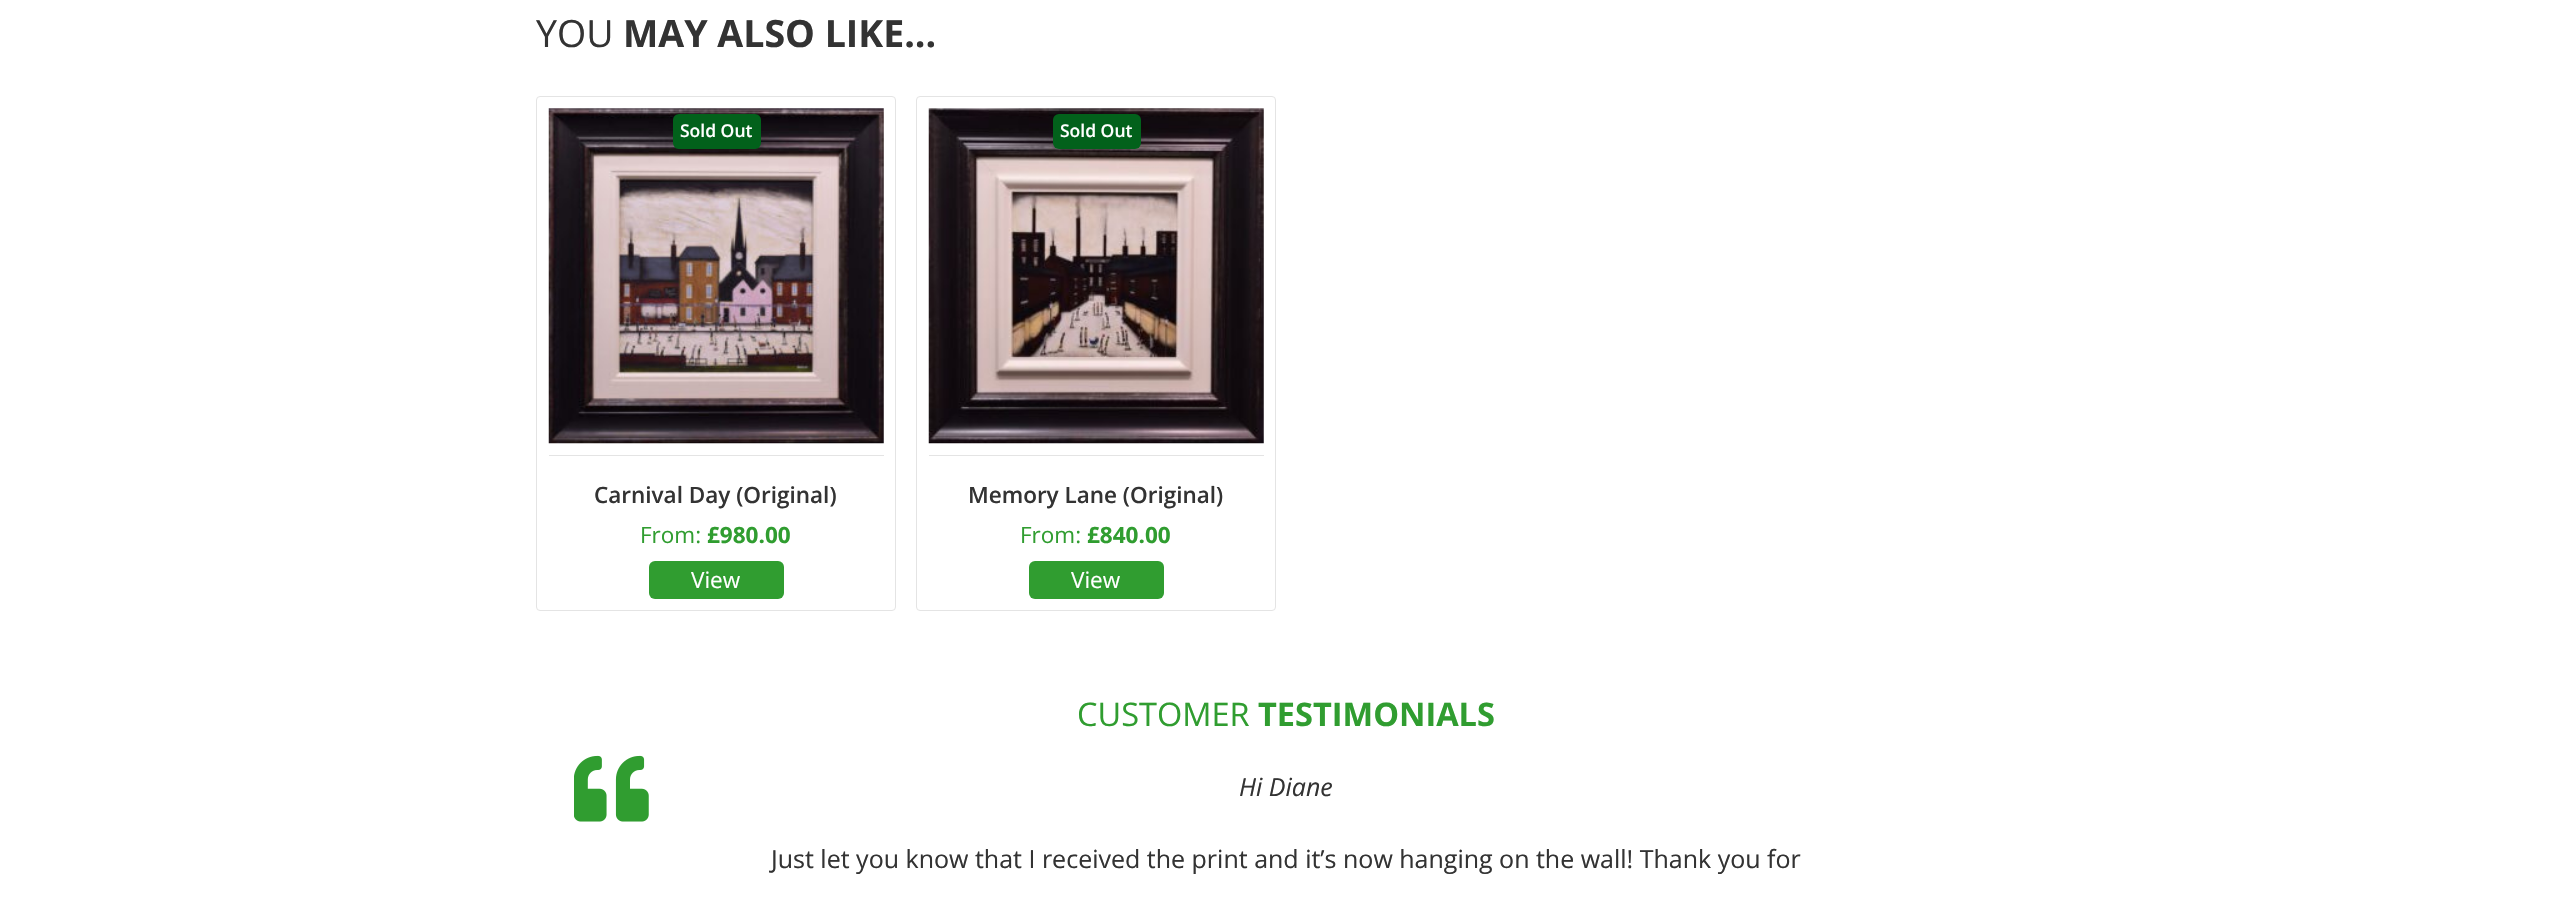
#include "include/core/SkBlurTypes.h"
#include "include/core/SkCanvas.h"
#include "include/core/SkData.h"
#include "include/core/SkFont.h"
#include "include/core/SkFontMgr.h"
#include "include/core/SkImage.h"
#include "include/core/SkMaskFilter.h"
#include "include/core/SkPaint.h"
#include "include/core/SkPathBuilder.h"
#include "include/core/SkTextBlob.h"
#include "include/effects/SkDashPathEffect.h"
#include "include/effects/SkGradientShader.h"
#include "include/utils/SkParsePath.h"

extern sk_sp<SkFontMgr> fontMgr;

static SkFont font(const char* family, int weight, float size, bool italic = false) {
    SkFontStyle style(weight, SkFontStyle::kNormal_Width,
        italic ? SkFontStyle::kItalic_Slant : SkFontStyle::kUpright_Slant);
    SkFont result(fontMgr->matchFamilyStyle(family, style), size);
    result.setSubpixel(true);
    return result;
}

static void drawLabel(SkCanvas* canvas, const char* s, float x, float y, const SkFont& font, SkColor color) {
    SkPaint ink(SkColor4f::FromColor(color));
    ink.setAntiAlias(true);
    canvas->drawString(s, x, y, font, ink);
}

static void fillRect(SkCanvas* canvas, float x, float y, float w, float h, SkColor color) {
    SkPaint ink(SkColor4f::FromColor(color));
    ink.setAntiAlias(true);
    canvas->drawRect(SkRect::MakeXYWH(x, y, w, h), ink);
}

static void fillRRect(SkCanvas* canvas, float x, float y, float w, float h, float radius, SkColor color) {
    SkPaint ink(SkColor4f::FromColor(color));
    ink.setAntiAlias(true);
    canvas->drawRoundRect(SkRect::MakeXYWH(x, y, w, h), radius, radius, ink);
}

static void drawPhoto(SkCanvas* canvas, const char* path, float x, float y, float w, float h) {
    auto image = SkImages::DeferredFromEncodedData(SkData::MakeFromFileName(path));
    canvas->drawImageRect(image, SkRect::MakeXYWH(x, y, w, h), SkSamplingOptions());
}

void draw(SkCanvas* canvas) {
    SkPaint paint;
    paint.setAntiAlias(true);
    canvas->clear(0xFFFFFFFF);
    SkFont font1 = font("Open Sans", 400, 37.5f);
    drawLabel(canvas, "YOU", 536, 47, font1, 0xFF333333);
    SkFont font2 = font("Open Sans", 700, 37.5f);
    drawLabel(canvas, "MAY ALSO LIKE...", 623, 47, font2, 0xFF333333);
    drawPhoto(canvas, "assets/img1.png", 548, 108, 336, 336);
    fillRRect(canvas, 673, 114, 88, 35, 6, 0xFF02611B);
    SkFont font3 = font("Open Sans", 600, 17.5f);
    drawLabel(canvas, "Sold Out", 680, 137, font3, 0xFFFFFFFF);
    fillRect(canvas, 549, 455, 335, 1, 0xFFE4E4E4);
    fillRRect(canvas, 649, 561, 135, 38, 6, 0xFF309D30);
    paint.setStroke(true);
    paint.setStrokeWidth(1);
    paint.setColor(0xFFE4E4E4);
    canvas->drawRoundRect(SkRect::MakeXYWH(536.5f, 96.5f, 359, 514), 3.5f, 3.5f, paint);
    SkFont font4 = font("Open Sans", 600, 22.5f);
    drawLabel(canvas, "Carnival Day (Original)", 594, 503, font4, 0xFF333333);
    SkFont font5 = font("Open Sans", 400, 22.5f);
    drawLabel(canvas, "View", 691, 588, font5, 0xFFFFFFFF);
    drawLabel(canvas, "From:", 640, 543, font5, 0xFF309D30);
    SkFont font6 = font("Open Sans", 700, 22.5f);
    drawLabel(canvas, "£980.00", 707, 543, font6, 0xFF309D30);
    drawPhoto(canvas, "assets/img2.png", 928, 108, 336, 336);
    fillRRect(canvas, 1053, 114, 88, 35, 6, 0xFF02611B);
    drawLabel(canvas, "Sold Out", 1060, 137, font3, 0xFFFFFFFF);
    fillRect(canvas, 929, 455, 335, 1, 0xFFE4E4E4);
    fillRRect(canvas, 1029, 561, 135, 38, 6, 0xFF309D30);
    canvas->drawRoundRect(SkRect::MakeXYWH(916.5f, 96.5f, 359, 514), 3.5f, 3.5f, paint);
    drawLabel(canvas, "Memory Lane (Original)", 968, 503, font4, 0xFF333333);
    drawLabel(canvas, "View", 1071, 588, font5, 0xFFFFFFFF);
    drawLabel(canvas, "From:", 1020, 543, font5, 0xFF309D30);
    drawLabel(canvas, "£840.00", 1087, 543, font6, 0xFF309D30);
    SkFont font7 = font("Open Sans", 400, 32.5f);
    drawLabel(canvas, "CUSTOMER", 1077, 726, font7, 0xFF309D30);
    SkFont font8 = font("Open Sans", 700, 32.5f);
    drawLabel(canvas, "TESTIMONIALS", 1258, 726, font8, 0xFF309D30);
    drawPhoto(canvas, "assets/img3.png", 574, 755, 75, 67);
    SkFont font9 = font("Open Sans", 400, 25, true);
    drawLabel(canvas, "Hi Diane", 1239, 796, font9, 0xFF333333);
    SkFont font10 = font("Open Sans", 400, 25);
    drawLabel(canvas, "Just let you know that I received the print and it’s now hanging on the wall! Thank you for", 771, 868, font10, 0xFF333333);
}
